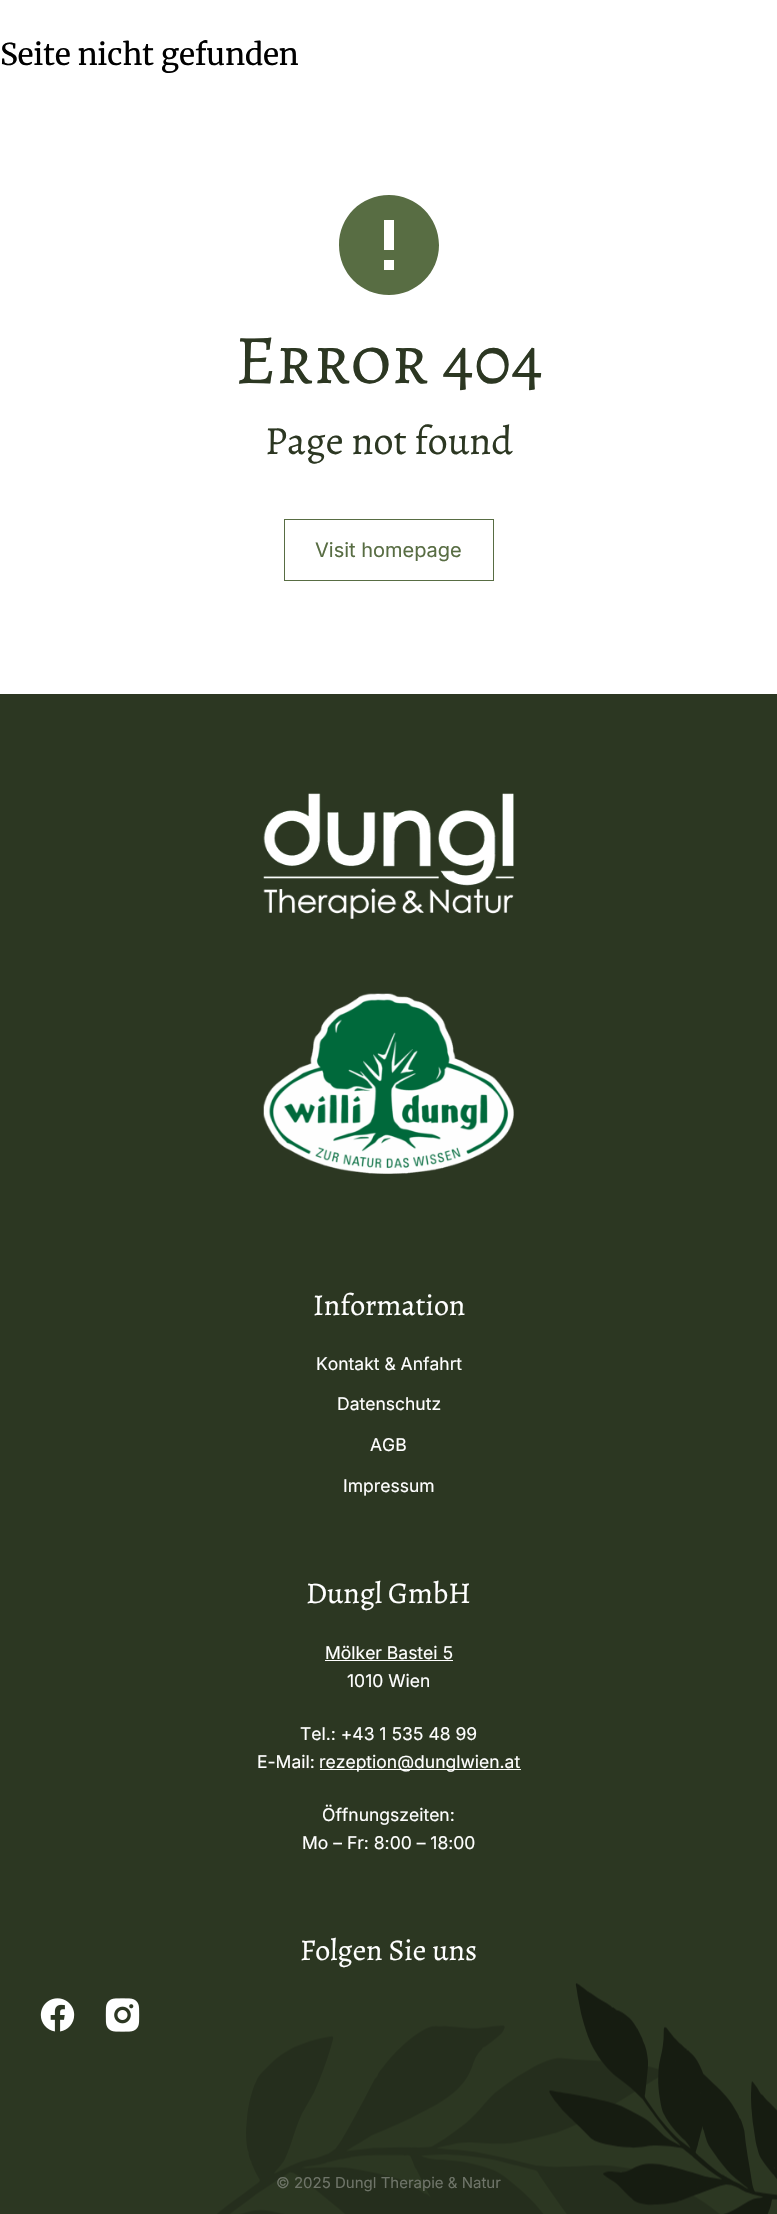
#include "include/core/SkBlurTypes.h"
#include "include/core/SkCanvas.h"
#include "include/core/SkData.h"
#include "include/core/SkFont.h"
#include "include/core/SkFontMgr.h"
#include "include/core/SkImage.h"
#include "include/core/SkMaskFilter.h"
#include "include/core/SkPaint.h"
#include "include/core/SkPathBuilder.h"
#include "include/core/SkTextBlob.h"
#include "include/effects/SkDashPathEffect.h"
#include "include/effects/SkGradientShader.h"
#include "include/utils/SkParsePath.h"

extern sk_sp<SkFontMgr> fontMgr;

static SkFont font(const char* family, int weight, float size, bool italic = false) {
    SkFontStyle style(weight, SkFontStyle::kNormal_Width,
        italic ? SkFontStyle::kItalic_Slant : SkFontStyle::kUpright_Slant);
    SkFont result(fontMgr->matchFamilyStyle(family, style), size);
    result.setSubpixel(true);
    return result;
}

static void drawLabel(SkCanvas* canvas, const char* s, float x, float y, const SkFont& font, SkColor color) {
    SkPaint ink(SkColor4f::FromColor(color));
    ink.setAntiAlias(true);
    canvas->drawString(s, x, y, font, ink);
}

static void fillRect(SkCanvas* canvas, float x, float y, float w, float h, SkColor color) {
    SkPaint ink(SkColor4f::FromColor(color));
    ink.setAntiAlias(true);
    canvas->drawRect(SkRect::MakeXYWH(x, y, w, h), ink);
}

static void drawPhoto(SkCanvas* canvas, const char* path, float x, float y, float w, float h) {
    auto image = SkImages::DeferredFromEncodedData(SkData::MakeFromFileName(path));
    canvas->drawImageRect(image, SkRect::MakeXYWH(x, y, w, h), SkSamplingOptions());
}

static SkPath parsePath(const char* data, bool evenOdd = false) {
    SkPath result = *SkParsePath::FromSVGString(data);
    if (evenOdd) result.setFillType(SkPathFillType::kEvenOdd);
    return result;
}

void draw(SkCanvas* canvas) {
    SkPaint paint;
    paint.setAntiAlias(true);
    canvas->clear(0xFFFFFFFF);
    SkFont font1 = font("Merriweather", 400, 30);
    drawLabel(canvas, "Seite nicht gefunden", 0, 65, font1, 0xFF000000);
    paint.setColor(0xFF586D43);
    canvas->drawPath(parsePath("M389 295C361 295 339 273 339 245C339 217 361 195 389 195C416 195 439 217 439 245C439 273 416 295 389 295ZM384 260V270H394V260ZM384 220V250H394V220Z"), paint);
    SkFont font2 = font("Alegreya SC", 400, 70);
    drawLabel(canvas, "Error 404", 235, 383, font2, 0xFF2C3722);
    SkFont font3 = font("Alegreya", 400, 40);
    drawLabel(canvas, "Page not found", 265, 454, font3, 0xFF2C3722);
    paint.setStroke(true);
    paint.setStrokeWidth(1);
    canvas->drawRect(SkRect::MakeXYWH(284.5f, 519.5f, 209, 61), paint);
    SkFont font4 = font("Inter", 400, 20);
    drawLabel(canvas, "Visit homepage", 315, 557, font4, 0xFF586D43);
    fillRect(canvas, 0, 694, 777, 1520, 0xFF2C3722);
    drawPhoto(canvas, "assets/img1.png", 263, 793, 251, 126);
    drawPhoto(canvas, "assets/img2.png", 263, 993, 251, 181);
    SkFont font5 = font("Alegreya", 400, 30);
    drawLabel(canvas, "Information", 313, 1315, font5, 0xFFFFFFFF);
    SkFont font6 = font("Inter", 400, 17.5f);
    drawLabel(canvas, "Kontakt & Anfahrt", 316, 1370, font6, 0xFFFFFFFF);
    drawLabel(canvas, "Datenschutz", 337, 1410, font6, 0xFFFFFFFF);
    drawLabel(canvas, "AGB", 370, 1451, font6, 0xFFFFFFFF);
    drawLabel(canvas, "Impressum", 343, 1492, font6, 0xFFFFFFFF);
    drawLabel(canvas, "Dungl GmbH", 306, 1603, font5, 0xFFFFFFFF);
    drawLabel(canvas, "Mölker Bastei 5", 325, 1659, font6, 0xFFFFFFFF);
    fillRect(canvas, 325, 1660, 128, 1, 0xFFFFFFFF);
    drawLabel(canvas, "1010 Wien", 347, 1687, font6, 0xFFFFFFFF);
    drawLabel(canvas, "Tel.: +43 1 535 48 99", 300, 1740, font6, 0xFFFFFFFF);
    drawLabel(canvas, "E-Mail:", 257, 1768, font6, 0xFFFFFFFF);
    fillRect(canvas, 320, 1769, 201, 1, 0xFFFFFFFF);
    drawLabel(canvas, "rezeption@dunglwien.at", 319, 1768, font6, 0xFFFFFFFF);
    drawLabel(canvas, "Öffnungszeiten:", 322, 1821, font6, 0xFFFFFFFF);
    drawLabel(canvas, "Mo – Fr: 8:00 – 18:00", 302, 1849, font6, 0xFFFFFFFF);
    drawLabel(canvas, "Folgen Sie uns", 300, 1960, font5, 0xFFFFFFFF);
    drawPhoto(canvas, "assets/img3.png", 40, 1998, 35, 34);
    drawPhoto(canvas, "assets/img4.png", 105, 1998, 35, 34);
    drawPhoto(canvas, "assets/img5.png", 217, 1983, 560, 231);
    SkFont font7 = font("Inter", 400, 15);
    drawLabel(canvas, "© 2025 Dungl Therapie & Natur", 276, 2188, font7, 0xFF6E7468);
}
